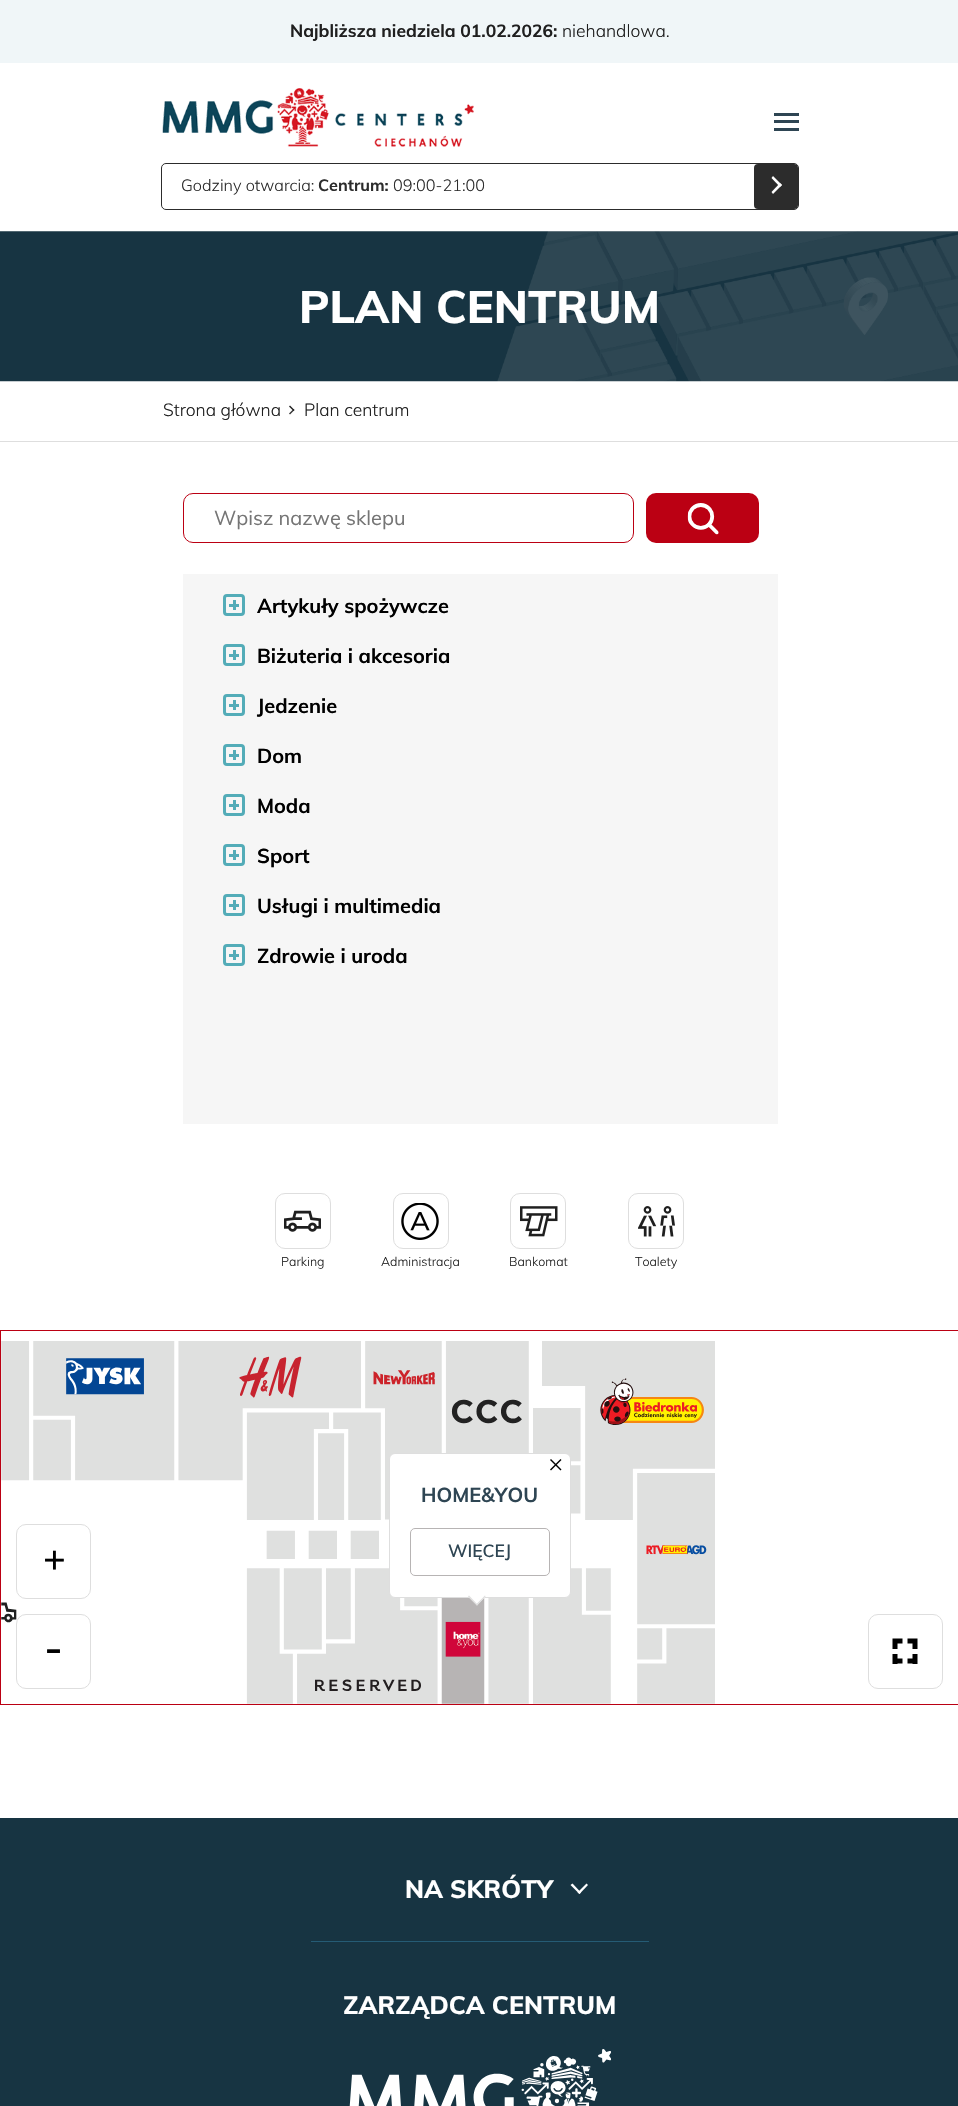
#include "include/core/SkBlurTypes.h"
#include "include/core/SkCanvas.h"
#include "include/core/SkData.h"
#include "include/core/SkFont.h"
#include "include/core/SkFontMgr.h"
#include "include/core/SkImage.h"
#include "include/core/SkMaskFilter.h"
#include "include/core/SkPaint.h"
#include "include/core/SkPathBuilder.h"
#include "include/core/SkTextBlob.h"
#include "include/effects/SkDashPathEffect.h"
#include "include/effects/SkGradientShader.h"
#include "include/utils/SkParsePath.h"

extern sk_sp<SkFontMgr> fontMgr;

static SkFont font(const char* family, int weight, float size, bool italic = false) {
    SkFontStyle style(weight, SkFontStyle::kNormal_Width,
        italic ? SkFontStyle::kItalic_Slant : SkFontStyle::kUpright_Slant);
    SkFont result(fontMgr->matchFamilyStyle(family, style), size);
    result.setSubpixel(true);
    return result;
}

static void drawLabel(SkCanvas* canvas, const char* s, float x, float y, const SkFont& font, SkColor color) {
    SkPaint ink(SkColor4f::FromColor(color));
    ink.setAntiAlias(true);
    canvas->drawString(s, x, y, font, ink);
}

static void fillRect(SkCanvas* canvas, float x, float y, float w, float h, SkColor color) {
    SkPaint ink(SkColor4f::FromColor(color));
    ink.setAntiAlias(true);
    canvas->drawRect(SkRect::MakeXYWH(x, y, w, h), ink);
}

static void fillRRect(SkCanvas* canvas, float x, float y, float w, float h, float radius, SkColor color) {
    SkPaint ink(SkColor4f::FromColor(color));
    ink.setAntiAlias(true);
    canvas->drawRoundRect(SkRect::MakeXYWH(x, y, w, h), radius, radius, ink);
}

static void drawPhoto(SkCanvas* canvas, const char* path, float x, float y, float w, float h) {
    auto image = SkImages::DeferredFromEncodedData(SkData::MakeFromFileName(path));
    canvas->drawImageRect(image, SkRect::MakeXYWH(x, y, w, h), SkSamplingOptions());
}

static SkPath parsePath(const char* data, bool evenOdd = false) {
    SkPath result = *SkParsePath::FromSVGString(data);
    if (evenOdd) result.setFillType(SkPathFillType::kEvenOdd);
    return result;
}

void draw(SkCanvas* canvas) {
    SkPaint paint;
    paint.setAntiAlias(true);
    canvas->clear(0xFFFFFFFF);
    fillRect(canvas, 0, 0, 958, 63, 0xFFF0F6F8);
    SkFont font1 = font("Muli", 700, 17.5f);
    drawLabel(canvas, "Najbliższa niedziela 01.02.2026:", 290, 37, font1, 0xFF1F1F1F);
    SkFont font2 = font("Muli", 300, 17.5f);
    drawLabel(canvas, "niehandlowa.", 562, 37, font2, 0xFF1F1F1F);
    drawPhoto(canvas, "assets/img1.png", 162, 88, 312, 59);
    fillRect(canvas, 774, 113, 25, 3, 0xFF2E4553);
    fillRect(canvas, 774, 120, 25, 3, 0xFF2E4553);
    fillRect(canvas, 774, 128, 25, 3, 0xFF2E4553);
    paint.setStroke(true);
    paint.setStrokeWidth(1);
    paint.setColor(0xFF2C2C2C);
    canvas->drawRoundRect(SkRect::MakeXYWH(161.5f, 163.5f, 637, 46), 4.5f, 4.5f, paint);
    fillRRect(canvas, 754, 164, 44, 45, 4, 0xFF2C2C2C);
    SkFont font3 = font("Muli", 300, 16.25f);
    drawLabel(canvas, "Godziny otwarcia:", 181, 191, font3, 0xFF2C2C2C);
    SkFont font4 = font("Muli", 700, 16.25f);
    drawLabel(canvas, "Centrum:", 318, 191, font4, 0xFF2C2C2C);
    drawLabel(canvas, "09:00-21:00", 393, 191, font3, 0xFF2C2C2C);
    paint.setStroke(false);
    paint.setColor(0xFFFFFFFF);
    canvas->drawPath(parsePath("M771.5 178L773 176L782 185L780 187Z"), paint);
    canvas->drawPath(parsePath("M771.5 192L780 183L782 185L773 194Z"), paint);
    drawPhoto(canvas, "assets/img2.png", 0, 231, 958, 151);
    SkFont font5 = font("Muli", 800, 45);
    drawLabel(canvas, "PLAN CENTRUM", 299, 323, font5, 0xFFFFFFFF);
    drawLabel(canvas, "Strona główna", 163, 416, font2, 0xFF1F1F1F);
    paint.setColor(0xFF1F1F1F);
    canvas->drawPath(parsePath("M290 405.5L294.5 410L293.5 411L289 406.5Z"), paint);
    paint.setColor(0xE61F1F1F);
    canvas->drawPath(parsePath("M289 413.5L293.5 409L294.5 410L290 414.5Z"), paint);
    drawLabel(canvas, "Plan centrum", 304, 416, font2, 0xFF1F1F1F);
    fillRect(canvas, 0, 441, 958, 1, 0xFFDEDEDE);
    paint.setStroke(true);
    paint.setColor(0xFFBB0013);
    canvas->drawRoundRect(SkRect::MakeXYWH(183.5f, 493.5f, 450, 49), 9.5f, 9.5f, paint);
    SkFont font6 = font("Muli", 400, 20);
    drawLabel(canvas, "Wpisz nazwę sklepu", 214, 525, font6, 0xFF757575);
    fillRRect(canvas, 646, 493, 113, 50, 10, 0xFFBB0013);
    drawPhoto(canvas, "assets/img3.png", 687, 503, 32, 32);
    fillRect(canvas, 183, 574, 595, 550, 0xFFF6F6F6);
    paint.setStrokeWidth(3);
    paint.setColor(0xFF53ACB8);
    canvas->drawRoundRect(SkRect::MakeXYWH(224.5f, 595.5f, 19, 19), 2.5f, 2.5f, paint);
    fillRect(canvas, 229, 604, 10, 3, 0xFF53ACB8);
    fillRect(canvas, 233, 600, 3, 10, 0xFF53ACB8);
    SkFont font7 = font("Muli", 700, 20);
    drawLabel(canvas, "Artykuły spożywcze", 257, 613, font7, 0xFF000000);
    canvas->drawRoundRect(SkRect::MakeXYWH(224.5f, 645.5f, 19, 19), 2.5f, 2.5f, paint);
    fillRect(canvas, 229, 654, 10, 3, 0xFF53ACB8);
    fillRect(canvas, 233, 650, 3, 10, 0xFF53ACB8);
    drawLabel(canvas, "Biżuteria i akcesoria", 257, 663, font7, 0xFF000000);
    canvas->drawRoundRect(SkRect::MakeXYWH(224.5f, 695.5f, 19, 19), 2.5f, 2.5f, paint);
    fillRect(canvas, 229, 704, 10, 3, 0xFF53ACB8);
    fillRect(canvas, 233, 700, 3, 10, 0xFF53ACB8);
    drawLabel(canvas, "Jedzenie", 257, 713, font7, 0xFF000000);
    canvas->drawRoundRect(SkRect::MakeXYWH(224.5f, 745.5f, 19, 19), 2.5f, 2.5f, paint);
    fillRect(canvas, 229, 754, 10, 3, 0xFF53ACB8);
    fillRect(canvas, 233, 750, 3, 10, 0xFF53ACB8);
    drawLabel(canvas, "Dom", 257, 763, font7, 0xFF000000);
    canvas->drawRoundRect(SkRect::MakeXYWH(224.5f, 795.5f, 19, 19), 2.5f, 2.5f, paint);
    fillRect(canvas, 229, 804, 10, 3, 0xFF53ACB8);
    fillRect(canvas, 233, 800, 3, 10, 0xFF53ACB8);
    drawLabel(canvas, "Moda", 257, 813, font7, 0xFF000000);
    canvas->drawRoundRect(SkRect::MakeXYWH(224.5f, 845.5f, 19, 19), 2.5f, 2.5f, paint);
    fillRect(canvas, 229, 854, 10, 3, 0xFF53ACB8);
    fillRect(canvas, 233, 850, 3, 10, 0xFF53ACB8);
    drawLabel(canvas, "Sport", 257, 863, font7, 0xFF000000);
    canvas->drawRoundRect(SkRect::MakeXYWH(224.5f, 895.5f, 19, 19), 2.5f, 2.5f, paint);
    fillRect(canvas, 229, 904, 10, 3, 0xFF53ACB8);
    fillRect(canvas, 233, 900, 3, 10, 0xFF53ACB8);
    drawLabel(canvas, "Usługi i multimedia", 257, 913, font7, 0xFF000000);
    canvas->drawRoundRect(SkRect::MakeXYWH(224.5f, 945.5f, 19, 19), 2.5f, 2.5f, paint);
    fillRect(canvas, 229, 954, 10, 3, 0xFF53ACB8);
    fillRect(canvas, 233, 950, 3, 10, 0xFF53ACB8);
    drawLabel(canvas, "Zdrowie i uroda", 257, 963, font7, 0xFF000000);
    paint.setStrokeWidth(1);
    paint.setColor(0xFFBB0013);
    canvas->drawRect(SkRect::MakeXYWH(0.5f, 1330.5f, 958, 374), paint);
    drawPhoto(canvas, "assets/img4.png", 1, 1341, 714, 363);
    paint.setStroke(false);
    paint.setColor(0xFFFFFFFF);
    canvas->drawRoundRect(SkRect::MakeXYWH(389.5f, 1453.5f, 181, 144), 5.5f, 5.5f, paint);
    paint.setStroke(true);
    paint.setColor(0xFFDEDEDE);
    canvas->drawRoundRect(SkRect::MakeXYWH(389.5f, 1453.5f, 181, 144), 5.5f, 5.5f, paint);
    paint.setStroke(false);
    paint.setColor(0xFF000000);
    canvas->drawPath(parsePath("M550 1469.5L560.5 1459L561.5 1460L551 1470.5Z"), paint);
    canvas->drawPath(parsePath("M551 1459L561.5 1469.5L560.5 1470.5L550 1460Z"), paint);
    drawLabel(canvas, "HOME&YOU", 421, 1502, font7, 0xFF2E4553);
    paint.setStroke(true);
    paint.setColor(0xFFB7B4B4);
    canvas->drawRoundRect(SkRect::MakeXYWH(410.5f, 1528.5f, 139, 47), 4.5f, 4.5f, paint);
    SkFont font8 = font("Muli", 600, 17.5f);
    drawLabel(canvas, "WIĘCEJ", 448, 1557, font8, 0xFF2E4553);
    paint.setStroke(false);
    paint.setColor(0xFFFFFFFF);
    canvas->drawPath(parsePath("M468 1596.5L477 1587.5L485.5 1596.5L477 1605.5Z"), paint);
    paint.setColor(0xFFDEDEDE);
    canvas->drawPath(parsePath("M476 1604.5L485 1595.5L485.5 1596.5L477 1605.5Z"), paint);
    canvas->drawPath(parsePath("M468 1596.5L469 1595.5L477.5 1604.5L477 1605.5Z"), paint);
    paint.setStroke(true);
    canvas->drawRoundRect(SkRect::MakeXYWH(16.5f, 1524.5f, 74, 74), 9.5f, 9.5f, paint);
    SkFont font9 = font("Muli", 600, 38);
    drawLabel(canvas, "+", 43, 1571, font9, 0xFF000000);
    canvas->drawRoundRect(SkRect::MakeXYWH(16.5f, 1614.5f, 74, 74), 9.5f, 9.5f, paint);
    SkFont font10 = font("Muli", 600, 44);
    drawLabel(canvas, "-", 44, 1663, font10, 0xFF000000);
    canvas->drawRoundRect(SkRect::MakeXYWH(868.5f, 1614.5f, 74, 74), 9.5f, 9.5f, paint);
    paint.setStrokeWidth(5);
    paint.setColor(0xFF000000);
    canvas->drawPath(parsePath("M892.5 1641H902.5M907.5 1641H917.5M915 1639V1649M915 1654V1664M892.5 1661H902.5M907.5 1661H917.5M895 1639V1649M895 1654V1664"), paint);
    paint.setStrokeWidth(1);
    paint.setColor(0xFFDEDEDE);
    canvas->drawRoundRect(SkRect::MakeXYWH(275.5f, 1193.5f, 55, 55), 9.5f, 9.5f, paint);
    drawPhoto(canvas, "assets/img5.png", 284, 1210, 37, 22);
    SkFont font11 = font("Muli", 300, 12.5f);
    drawLabel(canvas, "Parking", 281, 1266, font11, 0xFF1F1F1F);
    canvas->drawRoundRect(SkRect::MakeXYWH(393.5f, 1193.5f, 55, 55), 9.5f, 9.5f, paint);
    drawPhoto(canvas, "assets/img6.png", 401, 1203, 38, 37);
    drawLabel(canvas, "Administracja", 381, 1266, font11, 0xFF1F1F1F);
    canvas->drawRoundRect(SkRect::MakeXYWH(510.5f, 1193.5f, 55, 55), 9.5f, 9.5f, paint);
    drawPhoto(canvas, "assets/img7.png", 520, 1206, 38, 31);
    drawLabel(canvas, "Bankomat", 509, 1266, font11, 0xFF1F1F1F);
    canvas->drawRoundRect(SkRect::MakeXYWH(628.5f, 1193.5f, 55, 55), 9.5f, 9.5f, paint);
    drawPhoto(canvas, "assets/img8.png", 638, 1206, 37, 31);
    drawLabel(canvas, "Toalety", 635, 1266, font11, 0xFF1F1F1F);
    fillRect(canvas, 0, 1818, 958, 288, 0xFF173442);
    fillRect(canvas, 311, 1941, 338, 1, 0xFF255B75);
    SkFont font12 = font("Muli", 800, 25);
    drawLabel(canvas, "NA SKRÓTY", 405, 1898, font12, 0xFFFFFFFF);
    paint.setStroke(false);
    paint.setColor(0xFFFFFFFF);
    canvas->drawPath(parsePath("M586.5 1883.5L588 1885L579.5 1894L577.5 1892.5Z"), paint);
    canvas->drawPath(parsePath("M572.5 1883.5L581 1892.5L579.5 1894L570.5 1885Z"), paint);
    drawLabel(canvas, "ZARZĄDCA CENTRUM", 343, 2014, font12, 0xFFFFFFFF);
    drawPhoto(canvas, "assets/img9.png", 349, 2049, 262, 57);
}
